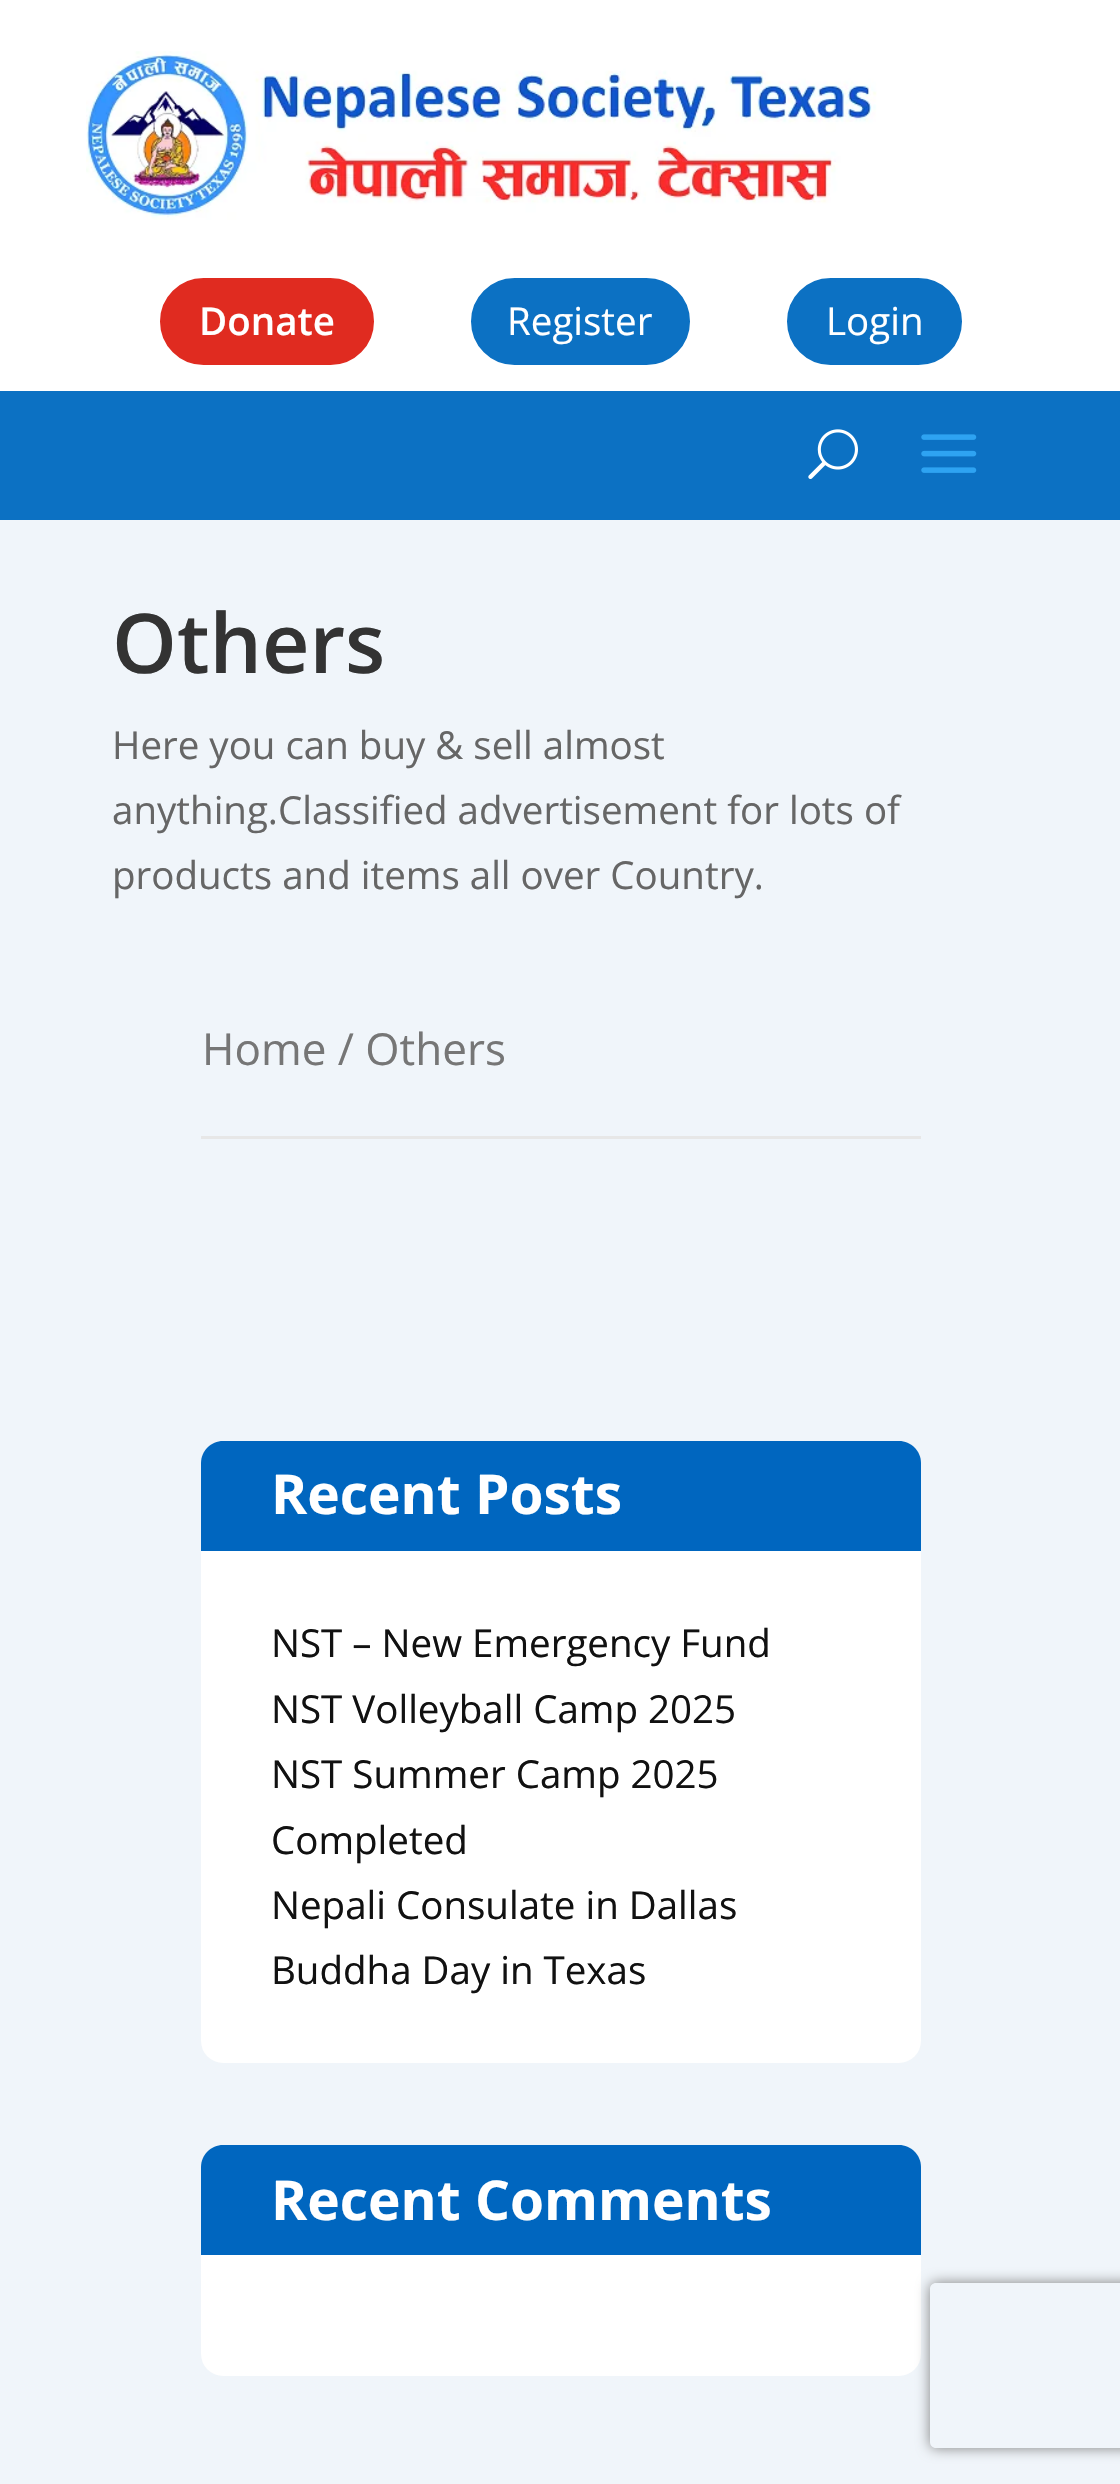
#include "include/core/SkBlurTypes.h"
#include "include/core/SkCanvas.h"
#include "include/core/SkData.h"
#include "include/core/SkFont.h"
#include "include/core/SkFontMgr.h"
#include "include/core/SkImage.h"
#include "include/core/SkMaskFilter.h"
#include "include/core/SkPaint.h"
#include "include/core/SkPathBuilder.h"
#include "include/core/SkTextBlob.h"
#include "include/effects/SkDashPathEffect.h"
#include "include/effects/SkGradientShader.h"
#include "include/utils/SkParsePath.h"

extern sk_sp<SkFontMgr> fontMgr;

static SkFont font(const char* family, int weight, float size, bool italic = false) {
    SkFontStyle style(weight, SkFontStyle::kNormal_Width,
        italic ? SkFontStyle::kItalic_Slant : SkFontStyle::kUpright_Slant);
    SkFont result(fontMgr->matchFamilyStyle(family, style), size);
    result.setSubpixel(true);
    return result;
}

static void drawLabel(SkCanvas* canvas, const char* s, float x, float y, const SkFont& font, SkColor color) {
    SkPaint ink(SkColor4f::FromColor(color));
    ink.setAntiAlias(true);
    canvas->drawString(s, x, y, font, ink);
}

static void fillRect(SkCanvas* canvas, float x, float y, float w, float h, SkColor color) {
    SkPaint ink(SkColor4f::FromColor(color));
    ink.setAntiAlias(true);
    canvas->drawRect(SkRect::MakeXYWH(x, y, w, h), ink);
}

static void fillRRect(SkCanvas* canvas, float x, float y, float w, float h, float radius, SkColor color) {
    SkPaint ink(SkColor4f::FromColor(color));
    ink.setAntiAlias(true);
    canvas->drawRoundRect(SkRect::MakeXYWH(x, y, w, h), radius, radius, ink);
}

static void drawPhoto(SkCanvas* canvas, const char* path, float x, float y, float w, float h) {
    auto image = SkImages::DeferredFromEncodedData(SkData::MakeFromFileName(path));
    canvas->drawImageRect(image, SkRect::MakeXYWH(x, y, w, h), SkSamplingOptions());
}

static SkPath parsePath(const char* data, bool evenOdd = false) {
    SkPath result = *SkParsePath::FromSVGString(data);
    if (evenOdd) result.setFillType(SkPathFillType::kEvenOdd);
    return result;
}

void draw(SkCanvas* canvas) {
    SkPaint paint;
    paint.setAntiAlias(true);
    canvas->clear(0xFFF0F5FA);
    fillRect(canvas, 0, 0, 1120, 391, 0xFFFFFFFF);
    drawPhoto(canvas, "assets/img1.png", 86, 51, 791, 169);
    paint.setColor(0xFFE02B20);
    canvas->drawRoundRect(SkRect::MakeXYWH(157, 275, 220, 93), 46.5f, 46.5f, paint);
    paint.setStroke(true);
    paint.setStrokeWidth(6);
    paint.setColor(0xFFFFFFFF);
    canvas->drawRoundRect(SkRect::MakeXYWH(157, 275, 220, 93), 46.5f, 46.5f, paint);
    SkFont font1 = font("Open Sans", 600, 38.5f);
    drawLabel(canvas, "Donate", 199, 335, font1, 0xFFFFFFFF);
    paint.setStroke(false);
    paint.setColor(0xFF0C71C3);
    canvas->drawRoundRect(SkRect::MakeXYWH(468, 275, 225, 93), 46.5f, 46.5f, paint);
    paint.setStroke(true);
    paint.setColor(0xFFFFFFFF);
    canvas->drawRoundRect(SkRect::MakeXYWH(468, 275, 225, 93), 46.5f, 46.5f, paint);
    SkFont font2 = font("Open Sans", 400, 38.5f);
    drawLabel(canvas, "Register", 507, 335, font2, 0xFFFFFFFF);
    paint.setStroke(false);
    paint.setColor(0xFF0C71C3);
    canvas->drawRoundRect(SkRect::MakeXYWH(784, 275, 181, 93), 46.5f, 46.5f, paint);
    paint.setStroke(true);
    paint.setColor(0xFFFFFFFF);
    canvas->drawRoundRect(SkRect::MakeXYWH(784, 275, 181, 93), 46.5f, 46.5f, paint);
    drawLabel(canvas, "Login", 826, 335, font2, 0xFFFFFFFF);
    fillRect(canvas, 0, 391, 1120, 129, 0xFF0C71C3);
    drawPhoto(canvas, "assets/img2.png", 808, 429, 50, 50);
    drawPhoto(canvas, "assets/img3.png", 921, 434, 56, 39);
    SkFont font3 = font("Open Sans", 600, 82.5f);
    drawLabel(canvas, "Others", 112, 673, font3, 0xFF333333);
    drawLabel(canvas, "Here you can buy & sell almost", 112, 759, font2, 0xFF666666);
    drawLabel(canvas, "anything.Classified advertisement for lots of", 112, 824, font2, 0xFF666666);
    drawLabel(canvas, "products and items all over Country.", 112, 889, font2, 0xFF666666);
    fillRect(canvas, 201, 1136, 720, 3, 0xFFE7E7E7);
    SkFont font4 = font("Open Sans", 400, 44);
    drawLabel(canvas, "Home / Others", 202, 1065, font4, 0xFF767676);
    fillRRect(canvas, 201, 1441, 720, 622, 22, 0xFFFFFFFF);
    paint.setStroke(false);
    paint.setColor(0xFF0066BF);
    canvas->drawPath(parsePath("M223 1441H899C911 1441 921 1451 921 1463V1551H201V1463C201 1451 211 1441 223 1441Z"), paint);
    SkFont font5 = font("Open Sans", 700, 55);
    drawLabel(canvas, "Recent Posts", 271, 1514, font5, 0xFFFFFFFF);
    drawLabel(canvas, "NST – New Emergency Fund", 271, 1657, font2, 0xFF111111);
    drawLabel(canvas, "NST Volleyball Camp 2025", 271, 1723, font2, 0xFF111111);
    drawLabel(canvas, "NST Summer Camp 2025", 271, 1788, font2, 0xFF111111);
    drawLabel(canvas, "Completed", 271, 1854, font2, 0xFF111111);
    drawLabel(canvas, "Nepali Consulate in Dallas", 271, 1919, font2, 0xFF111111);
    drawLabel(canvas, "Buddha Day in Texas", 271, 1984, font2, 0xFF111111);
    fillRRect(canvas, 201, 2145, 720, 231, 22, 0xFFFFFFFF);
    canvas->drawPath(parsePath("M223 2145H899C911 2145 921 2155 921 2167V2255H201V2167C201 2155 211 2145 223 2145Z"), paint);
    drawLabel(canvas, "Recent Comments", 271, 2220, font5, 0xFFFFFFFF);
    canvas->save();
    canvas->clipPath(parsePath("M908 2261H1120V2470H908ZM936 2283H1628C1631.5 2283 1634 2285.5 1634 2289V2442C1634 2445.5 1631.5 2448 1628 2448H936C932.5 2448 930 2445.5 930 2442V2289C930 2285.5 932.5 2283 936 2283Z", true), true);
    paint.setColor(0xFF808080);
    paint.setMaskFilter(SkMaskFilter::MakeBlur(kNormal_SkBlurStyle, 7));
    canvas->drawRoundRect(SkRect::MakeXYWH(930, 2283, 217, 165), 6, 6, paint);
    paint.setMaskFilter(nullptr);
    canvas->restore();
}
